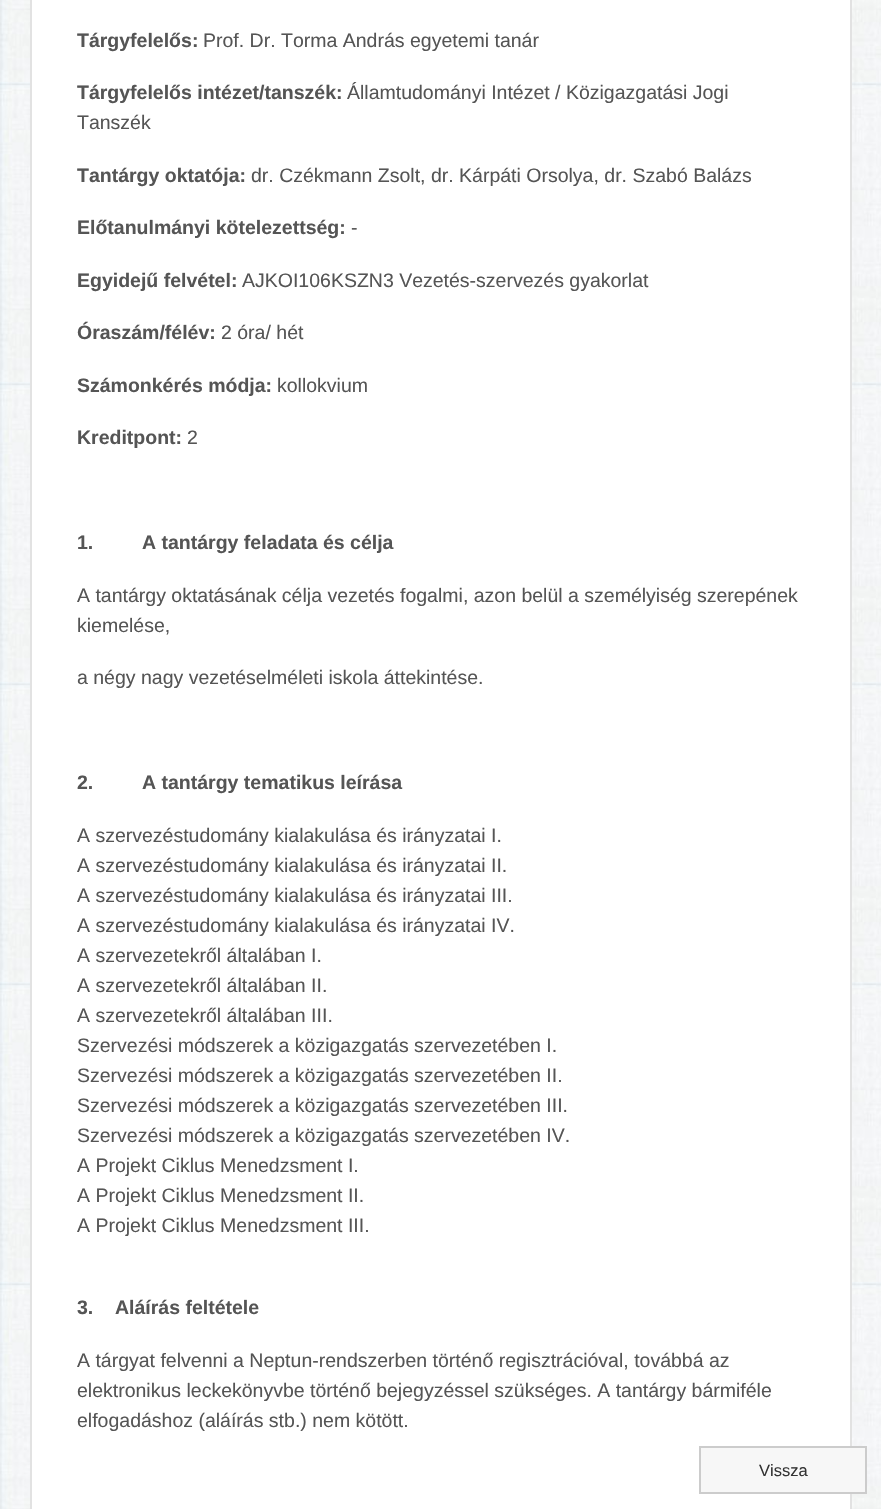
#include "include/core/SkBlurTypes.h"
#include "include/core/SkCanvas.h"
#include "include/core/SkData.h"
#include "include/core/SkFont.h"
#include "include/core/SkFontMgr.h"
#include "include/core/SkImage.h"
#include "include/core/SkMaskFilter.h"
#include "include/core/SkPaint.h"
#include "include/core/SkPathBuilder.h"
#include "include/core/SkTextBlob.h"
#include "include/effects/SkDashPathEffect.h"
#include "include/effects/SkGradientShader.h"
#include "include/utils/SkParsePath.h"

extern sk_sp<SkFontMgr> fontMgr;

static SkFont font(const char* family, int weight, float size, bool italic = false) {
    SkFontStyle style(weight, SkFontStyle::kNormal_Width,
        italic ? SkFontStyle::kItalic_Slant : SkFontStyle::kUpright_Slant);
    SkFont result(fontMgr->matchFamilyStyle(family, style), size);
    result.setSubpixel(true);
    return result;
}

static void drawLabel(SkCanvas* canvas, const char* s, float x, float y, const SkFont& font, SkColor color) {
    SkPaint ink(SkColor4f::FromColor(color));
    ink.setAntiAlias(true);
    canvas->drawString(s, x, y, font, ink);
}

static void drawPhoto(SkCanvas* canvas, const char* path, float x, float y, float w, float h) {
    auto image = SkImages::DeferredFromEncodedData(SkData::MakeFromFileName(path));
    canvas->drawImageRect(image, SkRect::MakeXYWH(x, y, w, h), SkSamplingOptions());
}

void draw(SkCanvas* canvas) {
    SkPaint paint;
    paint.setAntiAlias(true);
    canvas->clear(0xFFFFFFFF);
    drawPhoto(canvas, "assets/img1.png", 0, 0, 881, 1509);
    paint.setColor(0xFFFFFFFF);
    canvas->drawRect(SkRect::MakeXYWH(31, -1, 820, 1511), paint);
    paint.setStroke(true);
    paint.setStrokeWidth(2);
    paint.setColor(0xFFE2E2E2);
    canvas->drawRect(SkRect::MakeXYWH(31, -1, 820, 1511), paint);
    SkFont font1 = font("Liberation Sans", 700, 19.5f);
    drawLabel(canvas, "Tárgyfelelős:", 77, 47, font1, 0xFF555555);
    SkFont font2 = font("Liberation Sans", 400, 19.5f);
    drawLabel(canvas, "Prof. Dr. Torma András egyetemi tanár", 203, 47, font2, 0xFF555555);
    drawLabel(canvas, "Tárgyfelelős intézet/tanszék:", 77, 99, font1, 0xFF555555);
    drawLabel(canvas, "Államtudományi Intézet / Közigazgatási Jogi", 347, 99, font2, 0xFF555555);
    drawLabel(canvas, "Tanszék", 77, 129, font2, 0xFF555555);
    drawLabel(canvas, "Tantárgy oktatója:", 77, 182, font1, 0xFF555555);
    drawLabel(canvas, "dr. Czékmann Zsolt, dr. Kárpáti Orsolya, dr. Szabó Balázs", 251, 182, font2, 0xFF555555);
    drawLabel(canvas, "Előtanulmányi kötelezettség:", 77, 234, font1, 0xFF555555);
    drawLabel(canvas, "-", 351, 234, font2, 0xFF555555);
    drawLabel(canvas, "Egyidejű felvétel:", 77, 287, font1, 0xFF555555);
    drawLabel(canvas, "AJKOI106KSZN3 Vezetés-szervezés gyakorlat", 242, 287, font2, 0xFF555555);
    drawLabel(canvas, "Óraszám/félév:", 77, 339, font1, 0xFF555555);
    drawLabel(canvas, "2 óra/ hét", 221, 339, font2, 0xFF555555);
    drawLabel(canvas, "Számonkérés módja:", 77, 392, font1, 0xFF555555);
    drawLabel(canvas, "kollokvium", 277, 392, font2, 0xFF555555);
    drawLabel(canvas, "Kreditpont:", 77, 444, font1, 0xFF555555);
    drawLabel(canvas, "2", 187, 444, font2, 0xFF555555);
    drawLabel(canvas, "1.         A tantárgy feladata és célja", 77, 549, font1, 0xFF555555);
    drawLabel(canvas, "A tantárgy oktatásának célja vezetés fogalmi, azon belül a személyiség szerepének", 77, 602, font2, 0xFF555555);
    drawLabel(canvas, "kiemelése,", 77, 632, font2, 0xFF555555);
    drawLabel(canvas, "a négy nagy vezetéselméleti iskola áttekintése.", 77, 684, font2, 0xFF555555);
    drawLabel(canvas, "2.         A tantárgy tematikus leírása", 77, 789, font1, 0xFF555555);
    drawLabel(canvas, "A szervezéstudomány kialakulása és irányzatai I.", 77, 842, font2, 0xFF555555);
    drawLabel(canvas, "A szervezéstudomány kialakulása és irányzatai II.", 77, 872, font2, 0xFF555555);
    drawLabel(canvas, "A szervezéstudomány kialakulása és irányzatai III.", 77, 902, font2, 0xFF555555);
    drawLabel(canvas, "A szervezéstudomány kialakulása és irányzatai IV.", 77, 932, font2, 0xFF555555);
    drawLabel(canvas, "A szervezetekről általában I.", 77, 962, font2, 0xFF555555);
    drawLabel(canvas, "A szervezetekről általában II.", 77, 992, font2, 0xFF555555);
    drawLabel(canvas, "A szervezetekről általában III.", 77, 1022, font2, 0xFF555555);
    drawLabel(canvas, "Szervezési módszerek a közigazgatás szervezetében I.", 77, 1052, font2, 0xFF555555);
    drawLabel(canvas, "Szervezési módszerek a közigazgatás szervezetében II.", 77, 1082, font2, 0xFF555555);
    drawLabel(canvas, "Szervezési módszerek a közigazgatás szervezetében III.", 77, 1112, font2, 0xFF555555);
    drawLabel(canvas, "Szervezési módszerek a közigazgatás szervezetében IV.", 77, 1142, font2, 0xFF555555);
    drawLabel(canvas, "A Projekt Ciklus Menedzsment I.", 77, 1172, font2, 0xFF555555);
    drawLabel(canvas, "A Projekt Ciklus Menedzsment II.", 77, 1202, font2, 0xFF555555);
    drawLabel(canvas, "A Projekt Ciklus Menedzsment III.", 77, 1232, font2, 0xFF555555);
    drawLabel(canvas, "3.    Aláírás feltétele", 77, 1314, font1, 0xFF555555);
    drawLabel(canvas, "A tárgyat felvenni a Neptun-rendszerben történő regisztrációval, továbbá az", 77, 1367, font2, 0xFF555555);
    drawLabel(canvas, "elektronikus leckekönyvbe történő bejegyzéssel szükséges. A tantárgy bármiféle", 77, 1397, font2, 0xFF555555);
    drawLabel(canvas, "elfogadáshoz (aláírás stb.) nem kötött.", 77, 1427, font2, 0xFF555555);
    paint.setStroke(false);
    paint.setColor(0xFFF7F7F7);
    canvas->drawRect(SkRect::MakeXYWH(700, 1447, 166, 46), paint);
    paint.setStroke(true);
    paint.setColor(0xFFCCCCCC);
    canvas->drawRect(SkRect::MakeXYWH(700, 1447, 166, 46), paint);
    SkFont font3 = font("Liberation Sans", 400, 16.5f);
    drawLabel(canvas, "Vissza", 759, 1476, font3, 0xFF333333);
}
